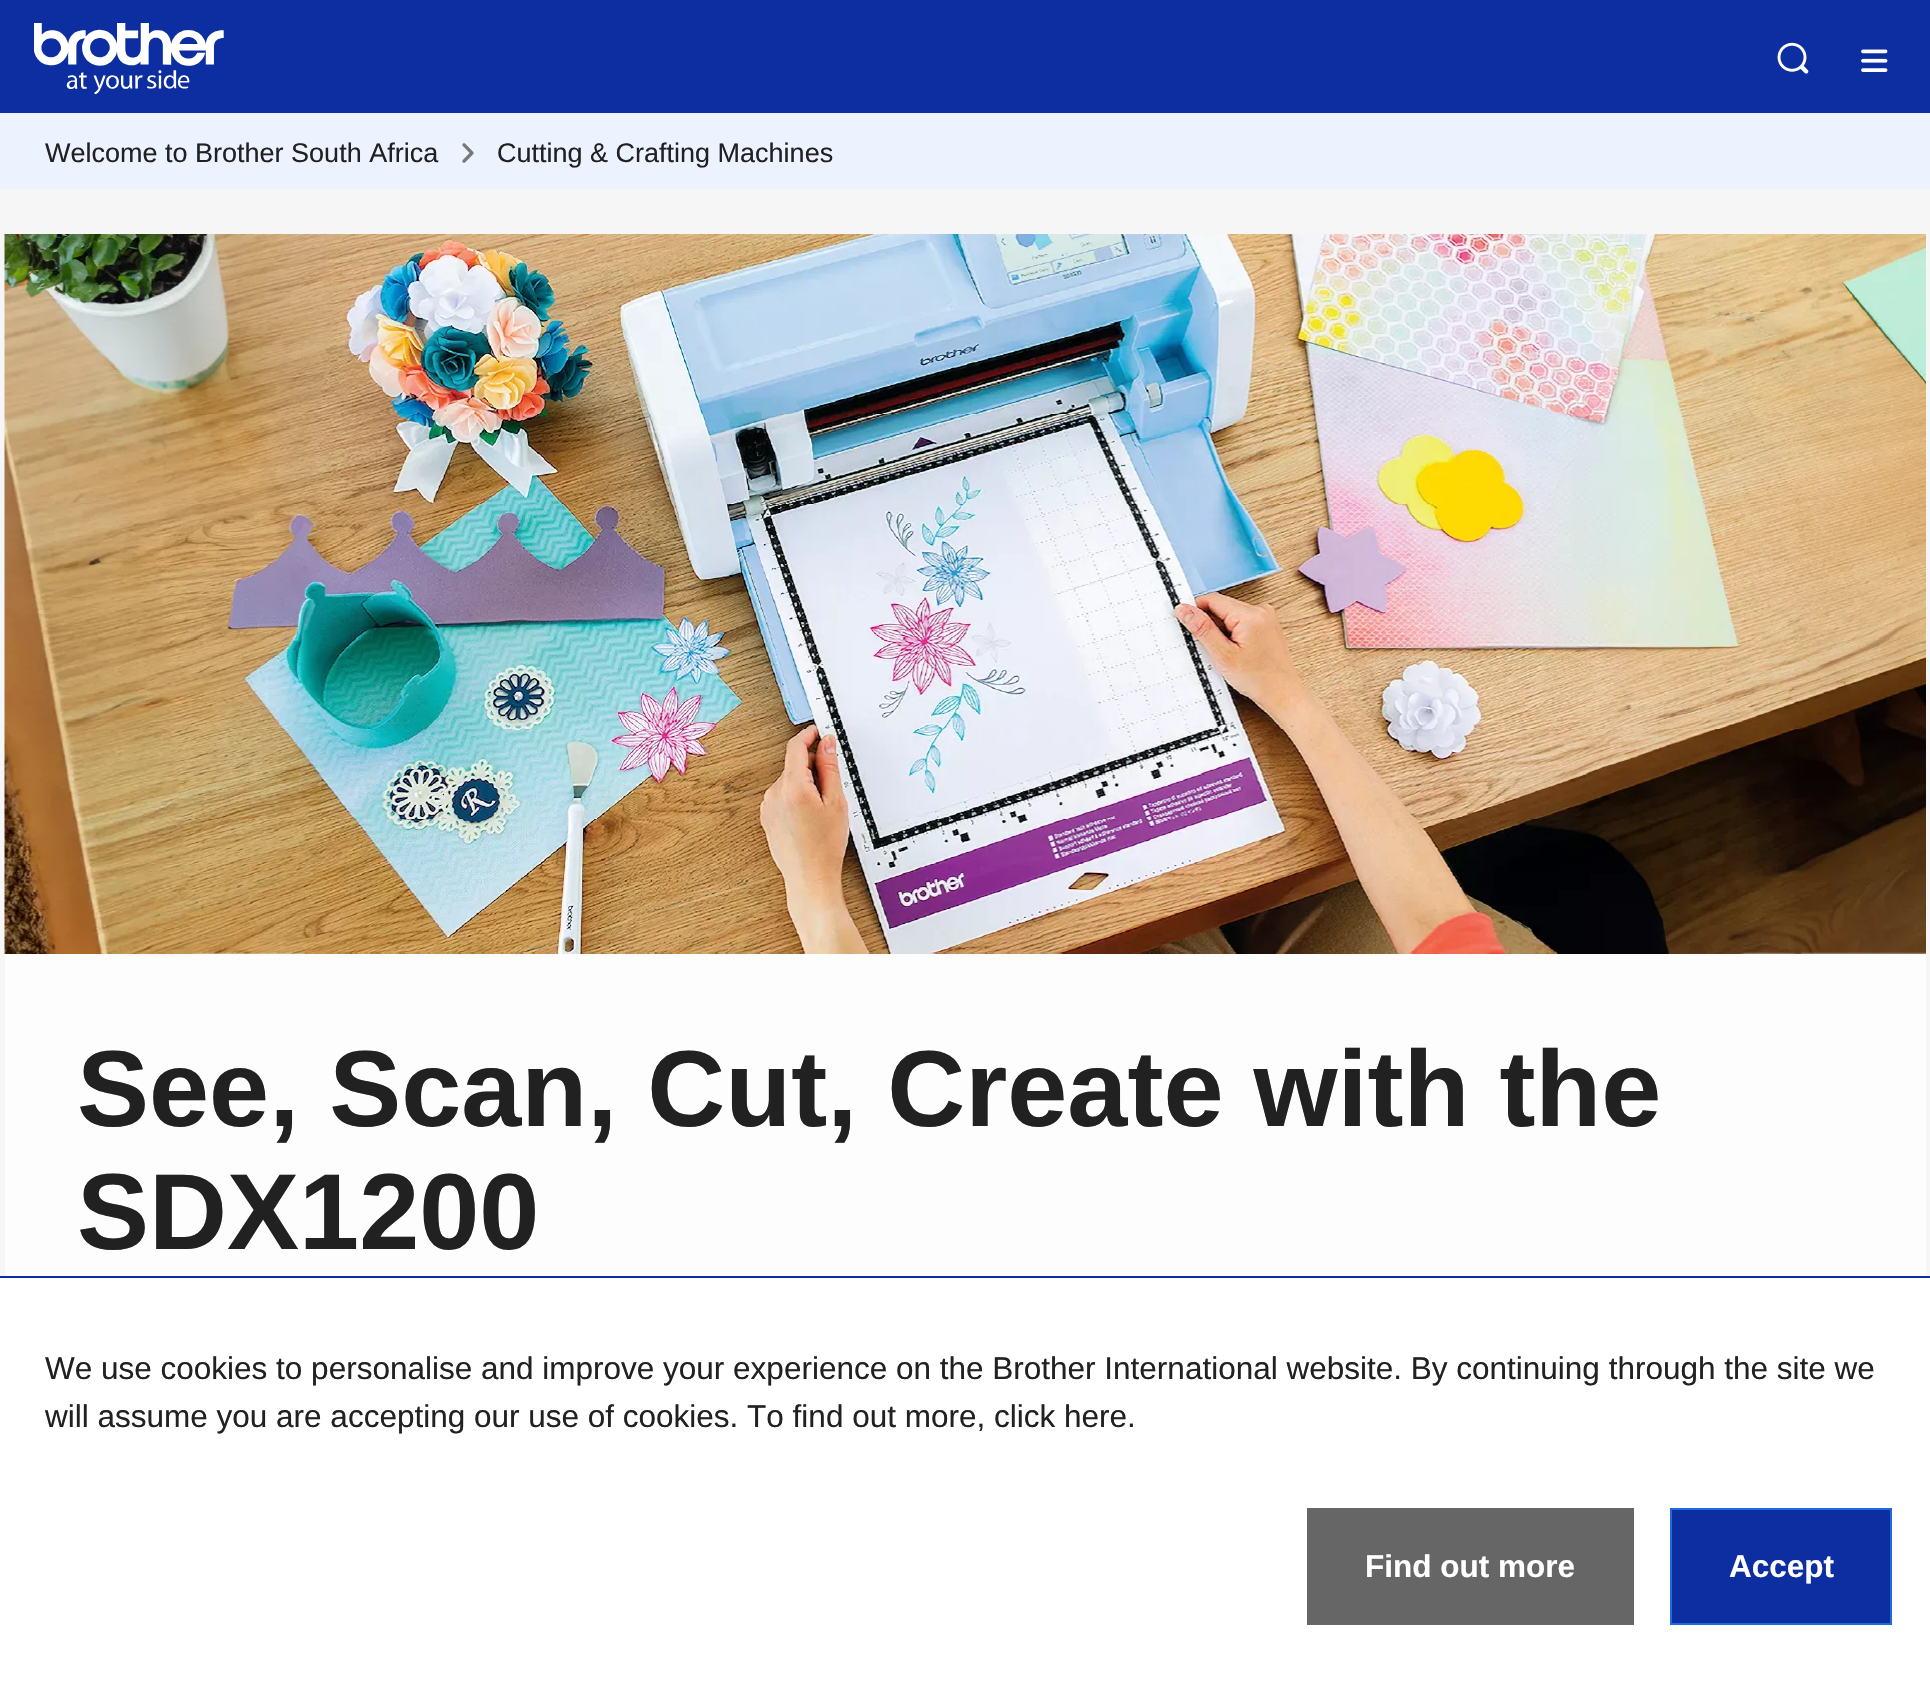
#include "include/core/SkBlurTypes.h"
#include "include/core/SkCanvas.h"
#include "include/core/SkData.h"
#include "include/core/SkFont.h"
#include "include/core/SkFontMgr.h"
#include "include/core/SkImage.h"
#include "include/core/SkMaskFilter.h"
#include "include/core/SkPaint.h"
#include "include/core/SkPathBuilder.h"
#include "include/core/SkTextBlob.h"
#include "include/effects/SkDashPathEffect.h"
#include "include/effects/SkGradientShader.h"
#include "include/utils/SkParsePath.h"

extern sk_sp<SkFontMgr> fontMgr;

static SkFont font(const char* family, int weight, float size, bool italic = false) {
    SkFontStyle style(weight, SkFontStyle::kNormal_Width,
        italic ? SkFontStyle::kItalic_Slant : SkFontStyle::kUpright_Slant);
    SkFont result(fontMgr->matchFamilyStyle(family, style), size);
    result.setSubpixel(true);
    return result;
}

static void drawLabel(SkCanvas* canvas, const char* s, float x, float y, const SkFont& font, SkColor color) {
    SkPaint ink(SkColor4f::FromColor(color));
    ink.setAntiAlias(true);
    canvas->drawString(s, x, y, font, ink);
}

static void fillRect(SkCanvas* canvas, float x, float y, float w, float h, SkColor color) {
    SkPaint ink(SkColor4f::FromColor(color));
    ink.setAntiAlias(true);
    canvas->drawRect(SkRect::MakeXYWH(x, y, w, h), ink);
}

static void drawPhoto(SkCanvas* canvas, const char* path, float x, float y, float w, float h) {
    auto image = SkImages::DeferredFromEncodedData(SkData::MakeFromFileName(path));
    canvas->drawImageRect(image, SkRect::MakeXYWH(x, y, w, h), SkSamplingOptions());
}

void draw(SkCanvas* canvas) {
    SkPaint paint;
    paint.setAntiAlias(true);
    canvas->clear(0xFFF6F6F6);
    fillRect(canvas, 0, 0, 1930, 113, 0xFF0D2EA0);
    drawPhoto(canvas, "assets/img1.png", 34, 23, 190, 72);
    drawPhoto(canvas, "assets/img2.png", 1777, 42, 32, 32);
    drawPhoto(canvas, "assets/img3.png", 1861, 49, 27, 23);
    fillRect(canvas, 0, 113, 1930, 76, 0xFFECF2FE);
    SkFont font1 = font("Liberation Sans", 400, 27);
    drawLabel(canvas, "Welcome to Brother South Africa", 45, 162, font1, 0xFF212121);
    drawPhoto(canvas, "assets/img4.png", 462, 143, 12, 20);
    drawLabel(canvas, "Cutting & Crafting Machines", 497, 162, font1, 0xFF212121);
    drawPhoto(canvas, "assets/img5.png", 4, 234, 1922, 720);
    fillRect(canvas, 5, 954, 1921, 322, 0xFFFDFDFD);
    SkFont font2 = font("Liberation Sans", 700, 108);
    drawLabel(canvas, "See, Scan, Cut, Create with the", 77, 1126, font2, 0xFF212121);
    drawLabel(canvas, "SDX1200", 77, 1249, font2, 0xFF212121);
    fillRect(canvas, 0, 1278, 1930, 412, 0xFFFFFFFF);
    fillRect(canvas, 0, 1276, 1930, 2, 0xFF0D2EA0);
    SkFont font3 = font("Liberation Sans", 400, 31.5f);
    drawLabel(canvas, "We use cookies to personalise and improve your experience on the Brother International website. By continuing through the site we", 45, 1379, font3, 0xFF212121);
    drawLabel(canvas, "will assume you are accepting our use of cookies. To find out more, click here.", 45, 1427, font3, 0xFF212121);
    fillRect(canvas, 1307, 1508, 327, 117, 0xFF666666);
    SkFont font4 = font("Liberation Sans", 700, 31.5f);
    drawLabel(canvas, "Find out more", 1365, 1577, font4, 0xFFFFFFFF);
    paint.setColor(0xFF0D2EA0);
    canvas->drawRect(SkRect::MakeXYWH(1671, 1509, 220, 115), paint);
    paint.setStroke(true);
    paint.setStrokeWidth(2);
    paint.setColor(0xFF2169DE);
    canvas->drawRect(SkRect::MakeXYWH(1671, 1509, 220, 115), paint);
    drawLabel(canvas, "Accept", 1729, 1577, font4, 0xFFFFFFFF);
}
